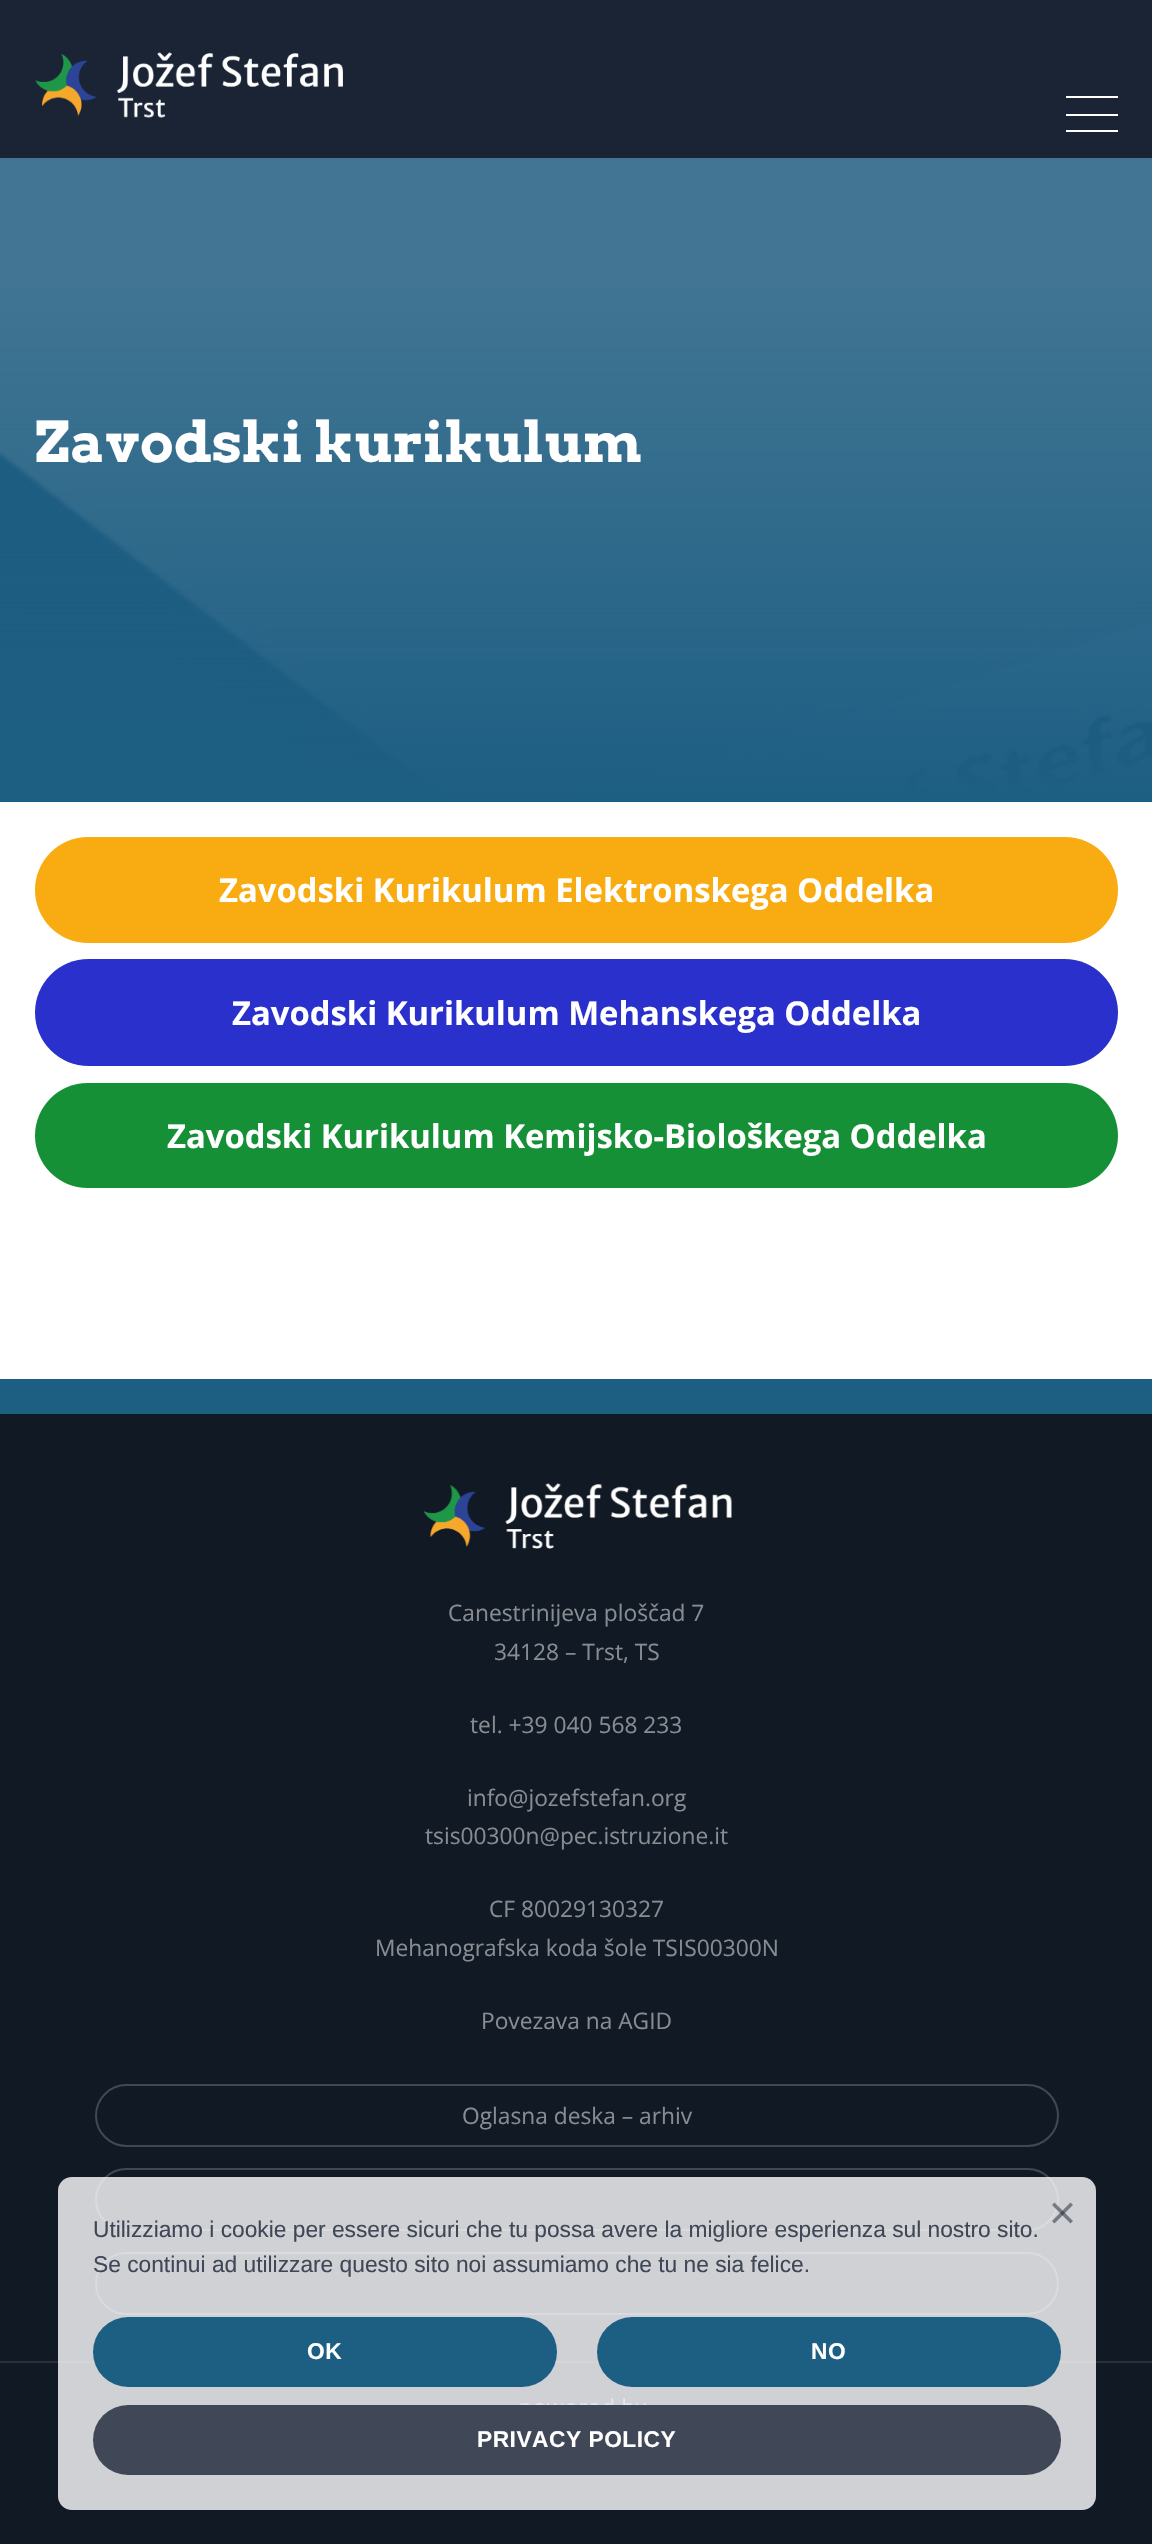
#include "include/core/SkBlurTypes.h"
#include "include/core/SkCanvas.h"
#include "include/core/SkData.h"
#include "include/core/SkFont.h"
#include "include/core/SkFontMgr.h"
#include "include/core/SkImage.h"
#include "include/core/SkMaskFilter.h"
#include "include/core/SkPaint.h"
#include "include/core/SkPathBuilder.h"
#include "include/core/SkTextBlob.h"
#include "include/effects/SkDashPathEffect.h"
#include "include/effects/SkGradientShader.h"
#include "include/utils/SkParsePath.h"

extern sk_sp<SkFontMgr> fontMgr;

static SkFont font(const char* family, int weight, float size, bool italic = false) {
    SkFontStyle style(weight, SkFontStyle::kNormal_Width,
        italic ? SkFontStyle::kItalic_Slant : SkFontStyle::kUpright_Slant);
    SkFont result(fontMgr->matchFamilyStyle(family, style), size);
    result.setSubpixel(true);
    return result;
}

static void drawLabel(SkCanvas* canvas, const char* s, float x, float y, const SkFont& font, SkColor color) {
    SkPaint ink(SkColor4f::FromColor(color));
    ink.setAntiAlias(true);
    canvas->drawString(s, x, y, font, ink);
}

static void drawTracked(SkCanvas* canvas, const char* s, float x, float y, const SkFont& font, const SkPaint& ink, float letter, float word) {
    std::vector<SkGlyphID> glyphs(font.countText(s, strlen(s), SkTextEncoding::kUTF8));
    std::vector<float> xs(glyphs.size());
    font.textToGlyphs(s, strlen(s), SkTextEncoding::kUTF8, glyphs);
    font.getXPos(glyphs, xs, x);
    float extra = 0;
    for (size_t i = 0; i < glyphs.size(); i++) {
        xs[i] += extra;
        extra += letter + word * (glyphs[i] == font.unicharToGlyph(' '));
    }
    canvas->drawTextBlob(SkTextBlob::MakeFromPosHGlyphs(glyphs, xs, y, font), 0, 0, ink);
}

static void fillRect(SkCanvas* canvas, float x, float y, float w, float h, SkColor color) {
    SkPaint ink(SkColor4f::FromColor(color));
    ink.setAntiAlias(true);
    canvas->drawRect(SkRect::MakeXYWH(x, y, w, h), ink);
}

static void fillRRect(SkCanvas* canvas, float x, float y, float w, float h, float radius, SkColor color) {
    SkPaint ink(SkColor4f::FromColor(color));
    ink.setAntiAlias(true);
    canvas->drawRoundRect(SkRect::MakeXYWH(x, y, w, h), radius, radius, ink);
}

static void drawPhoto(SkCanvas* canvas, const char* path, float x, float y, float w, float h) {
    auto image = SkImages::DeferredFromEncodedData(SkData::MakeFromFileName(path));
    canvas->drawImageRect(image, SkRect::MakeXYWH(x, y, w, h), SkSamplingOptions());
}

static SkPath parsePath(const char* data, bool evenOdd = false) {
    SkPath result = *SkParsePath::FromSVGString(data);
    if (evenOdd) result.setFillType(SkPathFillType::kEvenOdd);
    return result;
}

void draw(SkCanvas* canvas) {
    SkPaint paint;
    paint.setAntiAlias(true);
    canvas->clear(0xFF1D5E83);
    fillRect(canvas, 0, 0, 1152, 158, 0xFF1A2435);
    drawPhoto(canvas, "assets/img1.png", 35, 52, 308, 66);
    fillRect(canvas, 1066, 96, 52, 2, 0xFFFFFFFF);
    fillRect(canvas, 1066, 114, 52, 2, 0xFFFFFFFF);
    fillRect(canvas, 1066, 130, 52, 2, 0xFFFFFFFF);
    drawPhoto(canvas, "assets/img2.png", 0, 158, 1152, 643);
    SkFont font1 = font("Arvo", 700, 56);
    drawLabel(canvas, "Zavodski kurikulum", 35, 462, font1, 0xFFFFFFFF);
    fillRect(canvas, 0, 802, 1152, 577, 0xFFFFFFFF);
    fillRRect(canvas, 35, 837, 1083, 106, 53, 0xFFF9AC12);
    SkFont font2 = font("Open Sans", 700, 32.8f);
    drawLabel(canvas, "Zavodski Kurikulum Elektronskega Oddelka", 219, 902, font2, 0xFFFFFFFF);
    fillRRect(canvas, 35, 959, 1083, 107, 53.5f, 0xFF2930CB);
    drawLabel(canvas, "Zavodski Kurikulum Mehanskega Oddelka", 232, 1025, font2, 0xFFFFFFFF);
    fillRRect(canvas, 35, 1083, 1083, 105, 52.5f, 0xFF169037);
    drawLabel(canvas, "Zavodski Kurikulum Kemijsko-Biološkega Oddelka", 167, 1148, font2, 0xFFFFFFFF);
    fillRect(canvas, 0, 1414, 1152, 1130, 0xFF111924);
    drawPhoto(canvas, "assets/img3.png", 423, 1483, 309, 66);
    fillRect(canvas, 0, 2361, 1152, 2, 0xFF29303A);
    SkFont font3 = font("Open Sans", 400, 22.75f);
    drawLabel(canvas, "Canestrinijeva ploščad 7", 448, 1621, font3, 0xFF888C92);
    drawLabel(canvas, "34128 – Trst, TS", 494, 1660, font3, 0xFF888C92);
    drawLabel(canvas, "tel. +39 040 568 233", 470, 1733, font3, 0xFF888C92);
    drawLabel(canvas, "info@jozefstefan.org", 467, 1806, font3, 0xFF888C92);
    drawLabel(canvas, "tsis00300n@pec.istruzione.it", 425, 1844, font3, 0xFF888C92);
    drawLabel(canvas, "CF 80029130327", 489, 1917, font3, 0xFF888C92);
    drawLabel(canvas, "Mehanografska koda šole TSIS00300N", 375, 1956, font3, 0xFF888C92);
    drawLabel(canvas, "Povezava na AGID", 481, 2029, font3, 0xFF888C92);
    paint.setStroke(true);
    paint.setStrokeWidth(2);
    paint.setColor(0xFF404756);
    canvas->drawRoundRect(SkRect::MakeXYWH(96, 2085, 962, 61), 30.5f, 30.5f, paint);
    drawLabel(canvas, "Oglasna deska – arhiv", 462, 2124, font3, 0xFF888C92);
    canvas->drawRoundRect(SkRect::MakeXYWH(96, 2169, 962, 61), 30.5f, 30.5f, paint);
    canvas->drawRoundRect(SkRect::MakeXYWH(96, 2253, 962, 61), 30.5f, 30.5f, paint);
    drawPhoto(canvas, "assets/img4.png", 520, 2398, 126, 7);
    fillRRect(canvas, 58, 2177, 1038, 333, 14, 0xCCFFFFFF);
    paint.setStroke(false);
    paint.setColor(0xFF747982);
    canvas->drawPath(parsePath("M1070.5 2202.5L1073 2205L1054.5 2223.5L1052 2221Z"), paint);
    paint.setColor(0x80182030);
    canvas->drawPath(parsePath("M1052 2205L1054.5 2202.5L1073 2221L1070.5 2223.5Z"), paint);
    SkFont font4 = font("Liberation Sans", 400, 22.75f);
    drawLabel(canvas, "Utilizziamo i cookie per essere sicuri che tu possa avere la migliore esperienza sul nostro sito.", 93, 2237, font4, 0xFF404756);
    drawLabel(canvas, "Se continui ad utilizzare questo sito noi assumiamo che tu ne sia felice.", 93, 2272, font4, 0xFF404756);
    fillRRect(canvas, 93, 2317, 464, 70, 35, 0xFF1D5E83);
    SkFont font5 = font("Liberation Sans", 700, 22.75f);
    paint.setColor(0xFFFFFFFF);
    drawTracked(canvas, "OK", 307, 2359, font5, paint, 0.5f, 0);
    fillRRect(canvas, 597, 2317, 464, 70, 35, 0xFF1D5E83);
    drawTracked(canvas, "NO", 811, 2359, font5, paint, 0.5f, 0);
    fillRRect(canvas, 93, 2405, 968, 70, 35, 0xFF404756);
    drawTracked(canvas, "PRIVACY POLICY", 477, 2447, font5, paint, 0.5f, 0);
}
